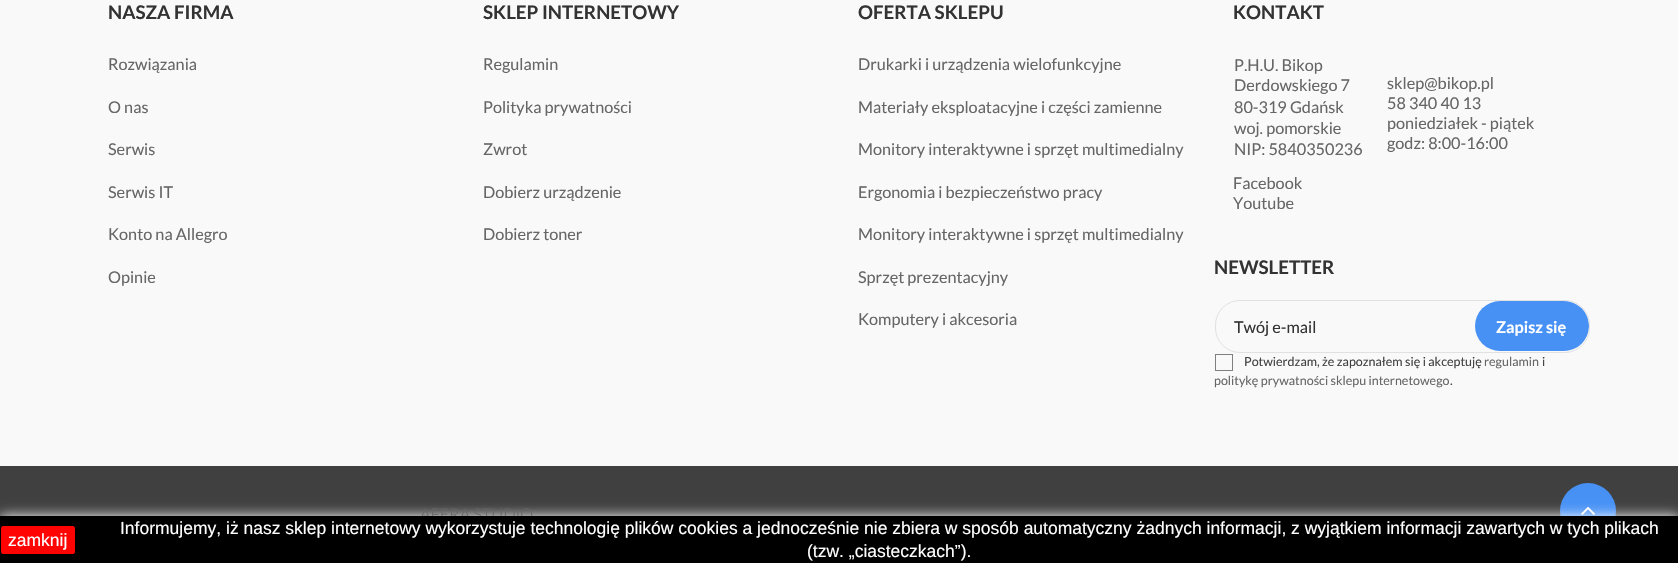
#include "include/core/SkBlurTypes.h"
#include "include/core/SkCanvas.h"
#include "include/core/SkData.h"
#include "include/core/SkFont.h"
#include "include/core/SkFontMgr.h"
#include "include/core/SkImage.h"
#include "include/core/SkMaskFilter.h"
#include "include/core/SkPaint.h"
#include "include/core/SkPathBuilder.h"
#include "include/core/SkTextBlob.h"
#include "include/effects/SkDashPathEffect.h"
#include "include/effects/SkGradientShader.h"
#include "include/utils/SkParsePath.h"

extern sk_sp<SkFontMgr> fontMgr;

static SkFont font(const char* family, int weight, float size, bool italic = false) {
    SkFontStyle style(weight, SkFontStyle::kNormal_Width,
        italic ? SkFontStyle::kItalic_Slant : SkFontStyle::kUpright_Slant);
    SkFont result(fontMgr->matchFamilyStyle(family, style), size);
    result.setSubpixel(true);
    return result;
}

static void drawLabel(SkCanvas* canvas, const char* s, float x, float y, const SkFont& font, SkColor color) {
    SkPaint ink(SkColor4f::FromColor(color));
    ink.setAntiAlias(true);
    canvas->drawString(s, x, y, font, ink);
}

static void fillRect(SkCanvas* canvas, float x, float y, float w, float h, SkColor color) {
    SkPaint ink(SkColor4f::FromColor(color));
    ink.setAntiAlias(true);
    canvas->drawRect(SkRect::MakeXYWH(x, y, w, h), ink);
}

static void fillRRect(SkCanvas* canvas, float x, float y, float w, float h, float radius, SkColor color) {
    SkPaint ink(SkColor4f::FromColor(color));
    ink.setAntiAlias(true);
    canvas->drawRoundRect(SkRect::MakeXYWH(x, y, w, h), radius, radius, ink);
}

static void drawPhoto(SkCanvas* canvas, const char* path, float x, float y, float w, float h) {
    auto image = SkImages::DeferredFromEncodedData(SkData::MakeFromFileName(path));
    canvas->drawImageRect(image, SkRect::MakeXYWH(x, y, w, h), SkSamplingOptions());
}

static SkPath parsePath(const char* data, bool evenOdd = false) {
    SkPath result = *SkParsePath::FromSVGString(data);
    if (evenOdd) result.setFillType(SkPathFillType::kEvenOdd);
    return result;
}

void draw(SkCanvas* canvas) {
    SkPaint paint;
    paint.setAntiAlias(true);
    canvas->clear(0xFFF9F9F9);
    SkFont font1 = font("Lato", 700, 18.75f);
    drawLabel(canvas, "NASZA FIRMA", 108, 19, font1, 0xFF333333);
    SkFont font2 = font("Lato", 400, 16.25f);
    drawLabel(canvas, "Rozwiązania", 108, 70, font2, 0xFF666666);
    drawLabel(canvas, "O nas", 108, 113, font2, 0xFF666666);
    drawLabel(canvas, "Serwis", 108, 155, font2, 0xFF666666);
    drawLabel(canvas, "Serwis IT", 108, 198, font2, 0xFF666666);
    drawLabel(canvas, "Konto na Allegro", 108, 240, font2, 0xFF666666);
    drawLabel(canvas, "Opinie", 108, 283, font2, 0xFF666666);
    drawLabel(canvas, "SKLEP INTERNETOWY", 483, 19, font1, 0xFF333333);
    drawLabel(canvas, "Regulamin", 483, 70, font2, 0xFF666666);
    drawLabel(canvas, "Polityka prywatności", 483, 113, font2, 0xFF666666);
    drawLabel(canvas, "Zwrot", 483, 155, font2, 0xFF666666);
    drawLabel(canvas, "Dobierz urządzenie", 483, 198, font2, 0xFF666666);
    drawLabel(canvas, "Dobierz toner", 483, 240, font2, 0xFF666666);
    drawLabel(canvas, "OFERTA SKLEPU", 858, 19, font1, 0xFF333333);
    drawLabel(canvas, "Drukarki i urządzenia wielofunkcyjne", 858, 70, font2, 0xFF666666);
    drawLabel(canvas, "Materiały eksploatacyjne i części zamienne", 858, 113, font2, 0xFF666666);
    drawLabel(canvas, "Monitory interaktywne i sprzęt multimedialny", 858, 155, font2, 0xFF666666);
    drawLabel(canvas, "Ergonomia i bezpieczeństwo pracy", 858, 198, font2, 0xFF666666);
    drawLabel(canvas, "Monitory interaktywne i sprzęt multimedialny", 858, 240, font2, 0xFF666666);
    drawLabel(canvas, "Sprzęt prezentacyjny", 858, 283, font2, 0xFF666666);
    drawLabel(canvas, "Komputery i akcesoria", 858, 325, font2, 0xFF666666);
    drawLabel(canvas, "KONTAKT", 1233, 19, font1, 0xFF333333);
    drawLabel(canvas, "P.H.U. Bikop", 1234, 71, font2, 0xFF666666);
    drawLabel(canvas, "Derdowskiego 7", 1234, 91, font2, 0xFF666666);
    drawLabel(canvas, "80-319 Gdańsk", 1234, 113, font2, 0xFF666666);
    drawLabel(canvas, "woj. pomorskie", 1234, 134, font2, 0xFF666666);
    drawLabel(canvas, "NIP: 5840350236", 1234, 155, font2, 0xFF666666);
    drawLabel(canvas, "sklep@bikop.pl", 1387, 89, font2, 0xFF666666);
    drawLabel(canvas, "58 340 40 13", 1387, 109, font2, 0xFF666666);
    drawLabel(canvas, "poniedziałek - piątek", 1387, 129, font2, 0xFF666666);
    drawLabel(canvas, "godz: 8:00-16:00", 1387, 149, font2, 0xFF666666);
    drawLabel(canvas, "Facebook", 1233, 189, font2, 0xFF666666);
    drawLabel(canvas, "Youtube", 1233, 209, font2, 0xFF666666);
    drawLabel(canvas, "NEWSLETTER", 1214, 274, font1, 0xFF333333);
    paint.setStroke(true);
    paint.setStrokeWidth(1);
    paint.setColor(0xFFE1E1E1);
    canvas->drawRoundRect(SkRect::MakeXYWH(1215.5f, 300.5f, 374, 52), 24.5f, 24.5f, paint);
    drawLabel(canvas, "Twój e-mail", 1234, 333, font2, 0xFF333333);
    canvas->save();
    canvas->clipPath(parsePath("M1240 301H1565C1578.5 301 1589 311.5 1589 325V327C1589 340.5 1578.5 351 1565 351H1240C1226.5 351 1216 340.5 1216 327V325C1216 311.5 1226.5 301 1240 301Z"), true);
    fillRRect(canvas, 1475, 301, 114, 50, 25, 0xFF4791F5);
    canvas->restore();
    SkFont font3 = font("Lato", 700, 16.25f);
    drawLabel(canvas, "Zapisz się", 1496, 333, font3, 0xFFFFFFFF);
    paint.setColor(0xFF808080);
    canvas->drawRect(SkRect::MakeXYWH(1215.5f, 354.5f, 17, 16), paint);
    SkFont font4 = font("Lato", 400, 12.5f);
    drawLabel(canvas, "Potwierdzam, że zapoznałem się i akceptuję", 1244, 366, font4, 0xFF414141);
    drawLabel(canvas, "regulamin", 1484, 366, font4, 0xFF666666);
    drawLabel(canvas, "i", 1542, 366, font4, 0xFF414141);
    drawLabel(canvas, "politykę prywatności sklepu internetowego", 1214, 385, font4, 0xFF666666);
    drawLabel(canvas, ".", 1450, 385, font4, 0xFF414141);
    fillRect(canvas, 0, 466, 1678, 50, 0xFF404040);
    paint.setStroke(false);
    paint.setColor(0xFF4791F5);
    canvas->drawCircle(1588, 511, 28, paint);
    drawPhoto(canvas, "assets/img1.png", 1581, 506, 14, 9);
    paint.setColor(0xFFFFFFFF);
    paint.setMaskFilter(SkMaskFilter::MakeBlur(kNormal_SkBlurStyle, 6));
    canvas->drawRect(SkRect::MakeXYWH(0, 516, 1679, 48), paint);
    paint.setMaskFilter(nullptr);
    SkFont font5 = font("Lato", 300, 16.25f);
    drawLabel(canvas, "AFERA STUDIO", 420, 520, font5, 0xFF666666);
    fillRect(canvas, 0, 516, 1678, 47, 0xFF000000);
    fillRRect(canvas, 1, 526, 74, 28, 2.5f, 0xFFFF0303);
    SkFont font6 = font("Liberation Sans", 400, 17.5f);
    drawLabel(canvas, "zamknij", 8, 546, font6, 0xFFFFFFFF);
    drawLabel(canvas, "Informujemy, iż nasz sklep internetowy wykorzystuje technologię plików cookies a jednocześnie nie zbiera w sposób automatyczny żadnych informacji, z wyjątkiem informacji zawartych w tych plikach", 120, 534, font6, 0xFFFFFFFF);
    drawLabel(canvas, "(tzw. „ciasteczkach”).", 807, 557, font6, 0xFFFFFFFF);
}
